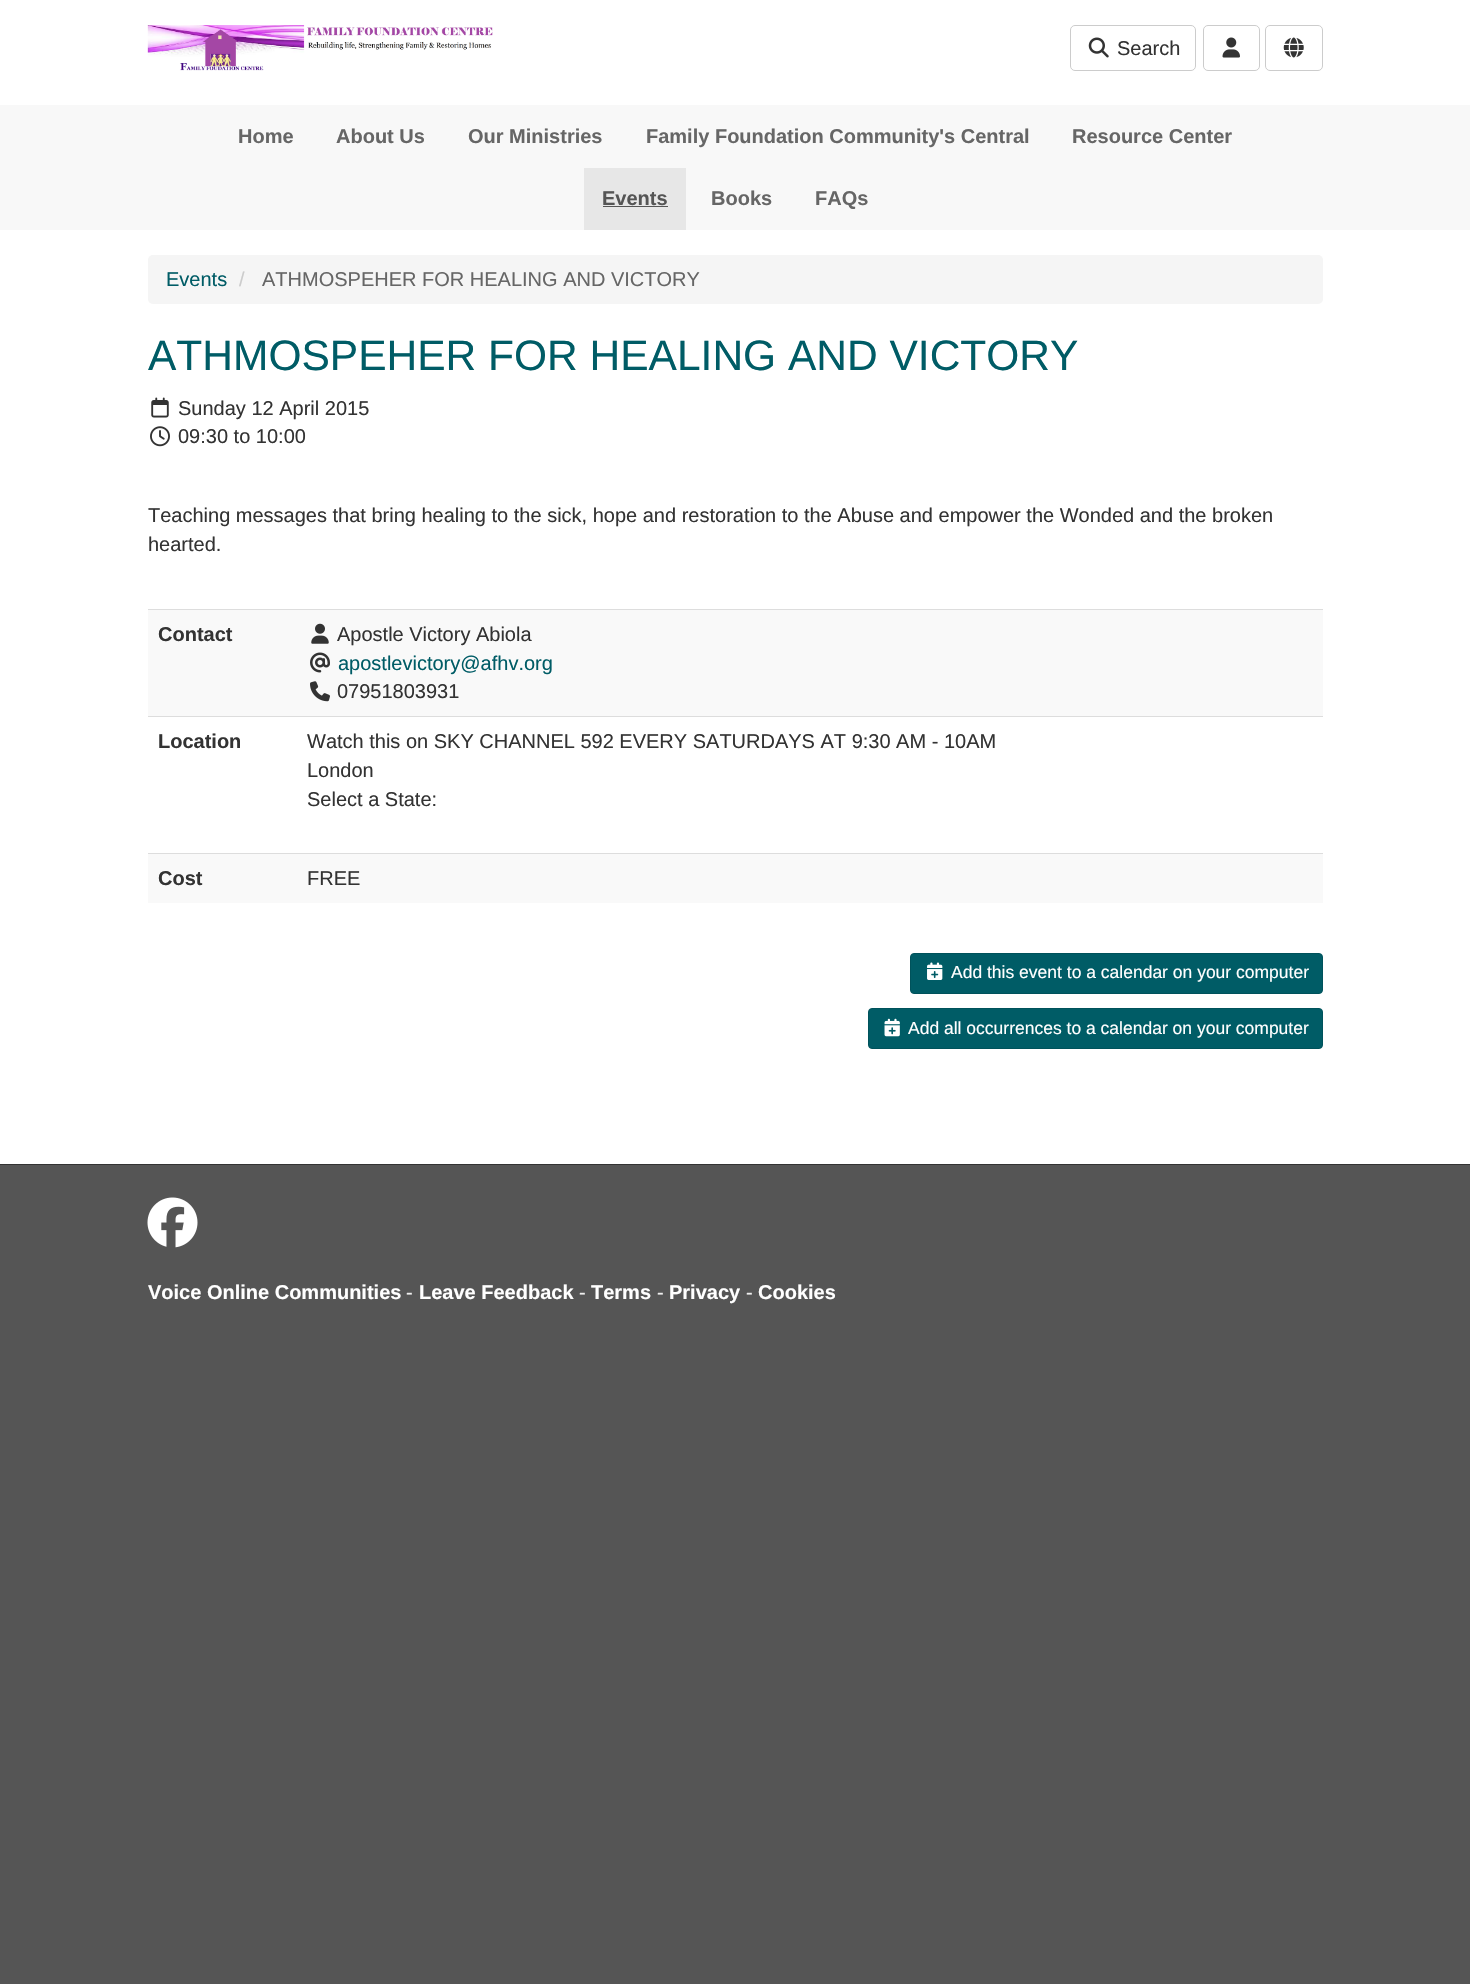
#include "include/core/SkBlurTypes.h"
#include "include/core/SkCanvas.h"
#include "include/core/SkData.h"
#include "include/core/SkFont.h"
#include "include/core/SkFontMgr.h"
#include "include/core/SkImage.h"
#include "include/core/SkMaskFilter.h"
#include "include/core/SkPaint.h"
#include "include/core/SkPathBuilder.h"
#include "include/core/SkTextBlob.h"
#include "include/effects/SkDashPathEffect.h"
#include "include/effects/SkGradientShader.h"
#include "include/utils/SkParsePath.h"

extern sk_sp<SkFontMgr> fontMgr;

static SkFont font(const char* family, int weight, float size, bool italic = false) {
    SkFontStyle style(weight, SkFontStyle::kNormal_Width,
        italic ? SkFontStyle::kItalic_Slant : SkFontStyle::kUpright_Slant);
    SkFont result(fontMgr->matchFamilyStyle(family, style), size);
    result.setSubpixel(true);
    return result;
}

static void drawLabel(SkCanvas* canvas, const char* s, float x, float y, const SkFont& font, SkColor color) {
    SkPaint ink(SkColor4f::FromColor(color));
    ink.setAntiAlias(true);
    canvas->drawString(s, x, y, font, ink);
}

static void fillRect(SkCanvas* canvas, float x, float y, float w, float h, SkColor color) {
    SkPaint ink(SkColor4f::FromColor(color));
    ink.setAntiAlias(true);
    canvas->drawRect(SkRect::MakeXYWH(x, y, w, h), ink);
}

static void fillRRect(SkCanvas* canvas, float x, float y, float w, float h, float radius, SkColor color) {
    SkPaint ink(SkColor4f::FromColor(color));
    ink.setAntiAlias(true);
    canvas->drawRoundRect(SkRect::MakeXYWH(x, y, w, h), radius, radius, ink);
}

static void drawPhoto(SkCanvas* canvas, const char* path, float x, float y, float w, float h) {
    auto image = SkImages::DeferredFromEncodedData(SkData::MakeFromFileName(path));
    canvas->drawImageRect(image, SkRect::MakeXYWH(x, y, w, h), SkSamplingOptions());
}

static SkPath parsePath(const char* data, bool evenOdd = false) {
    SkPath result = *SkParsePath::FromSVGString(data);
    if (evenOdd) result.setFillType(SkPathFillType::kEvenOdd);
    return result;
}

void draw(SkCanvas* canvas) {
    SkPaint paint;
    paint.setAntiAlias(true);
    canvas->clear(0xFFFFFFFF);
    drawPhoto(canvas, "assets/img1.png", 147, 25, 346, 46);
    paint.setStroke(true);
    paint.setStrokeWidth(1);
    paint.setColor(0xFFCCCCCC);
    canvas->drawRoundRect(SkRect::MakeXYWH(1070.5f, 25.5f, 125, 45), 4.5f, 4.5f, paint);
    drawPhoto(canvas, "assets/img2.png", 1088, 37, 21, 21);
    SkFont font1 = font("Liberation Sans", 400, 20);
    drawLabel(canvas, "Search", 1117, 55, font1, 0xFF333333);
    canvas->drawRoundRect(SkRect::MakeXYWH(1203.5f, 25.5f, 56, 45), 4.5f, 4.5f, paint);
    drawPhoto(canvas, "assets/img3.png", 1222, 37, 18, 21);
    canvas->drawRoundRect(SkRect::MakeXYWH(1265.5f, 25.5f, 57, 45), 4.5f, 4.5f, paint);
    drawPhoto(canvas, "assets/img4.png", 1283, 37, 21, 21);
    fillRect(canvas, 0, 105, 1470, 125, 0xFFF8F8F8);
    SkFont font2 = font("Liberation Sans", 700, 20);
    drawLabel(canvas, "Home", 238, 143, font2, 0xFF666666);
    drawLabel(canvas, "About Us", 336, 143, font2, 0xFF666666);
    drawLabel(canvas, "Our Ministries", 468, 143, font2, 0xFF666666);
    drawLabel(canvas, "Family Foundation Community's Central", 646, 143, font2, 0xFF666666);
    drawLabel(canvas, "Resource Center", 1072, 143, font2, 0xFF666666);
    fillRect(canvas, 584, 168, 102, 62, 0xFFE7E7E7);
    drawLabel(canvas, "Events", 602, 205, font2, 0xFF555555);
    fillRect(canvas, 603, 206, 65, 1, 0xFF555555);
    drawLabel(canvas, "Books", 711, 205, font2, 0xFF666666);
    drawLabel(canvas, "FAQs", 815, 205, font2, 0xFF666666);
    fillRRect(canvas, 148, 255, 1175, 49, 5, 0xFFF5F5F5);
    drawLabel(canvas, "Events", 166, 286, font1, 0xFF005C66);
    drawLabel(canvas, "/", 239, 286, font1, 0xFFCCCCCC);
    drawLabel(canvas, "ATHMOSPEHER FOR HEALING AND VICTORY", 262, 286, font1, 0xFF666666);
    SkFont font3 = font("Liberation Sans", 400, 42.5f);
    drawLabel(canvas, "ATHMOSPEHER FOR HEALING AND VICTORY", 148, 370, font3, 0xFF005C66);
    drawPhoto(canvas, "assets/img5.png", 151, 397, 18, 21);
    drawLabel(canvas, "Sunday 12 April 2015", 178, 415, font1, 0xFF333333);
    drawPhoto(canvas, "assets/img6.png", 150, 426, 20, 21);
    drawLabel(canvas, "09:30 to 10:00", 178, 443, font1, 0xFF333333);
    drawLabel(canvas, "Teaching messages that bring healing to the sick, hope and restoration to the Abuse and empower the Wonded and the broken", 148, 522, font1, 0xFF333333);
    drawLabel(canvas, "hearted.", 148, 551, font1, 0xFF333333);
    fillRect(canvas, 148, 610, 1175, 106, 0xFFF9F9F9);
    drawLabel(canvas, "Contact", 158, 641, font2, 0xFF333333);
    fillRect(canvas, 148, 609, 1175, 1, 0xFFDDDDDD);
    drawPhoto(canvas, "assets/img7.png", 311, 623, 18, 21);
    drawLabel(canvas, "Apostle Victory Abiola", 337, 641, font1, 0xFF333333);
    drawPhoto(canvas, "assets/img8.png", 310, 652, 20, 21);
    drawLabel(canvas, "apostlevictory@afhv.org", 338, 670, font1, 0xFF005C66);
    drawPhoto(canvas, "assets/img9.png", 310, 681, 20, 21);
    drawLabel(canvas, "07951803931", 337, 698, font1, 0xFF333333);
    drawLabel(canvas, "Location", 158, 748, font2, 0xFF333333);
    fillRect(canvas, 148, 716, 1175, 1, 0xFFDDDDDD);
    drawLabel(canvas, "Watch this on SKY CHANNEL 592 EVERY SATURDAYS AT 9:30 AM - 10AM", 307, 748, font1, 0xFF333333);
    drawLabel(canvas, "London", 307, 777, font1, 0xFF333333);
    drawLabel(canvas, "Select a State:", 307, 806, font1, 0xFF333333);
    fillRect(canvas, 148, 854, 1175, 49, 0xFFF9F9F9);
    drawLabel(canvas, "Cost", 158, 885, font2, 0xFF333333);
    fillRect(canvas, 148, 853, 1175, 1, 0xFFDDDDDD);
    drawLabel(canvas, "FREE", 307, 885, font1, 0xFF333333);
    paint.setStroke(false);
    paint.setColor(0xFF005C66);
    canvas->drawRoundRect(SkRect::MakeXYWH(910.5f, 953.5f, 412, 40), 3.5f, 3.5f, paint);
    paint.setStroke(true);
    paint.setColor(0xFF00525B);
    canvas->drawRoundRect(SkRect::MakeXYWH(910.5f, 953.5f, 412, 40), 3.5f, 3.5f, paint);
    drawPhoto(canvas, "assets/img10.png", 927, 962, 16, 18);
    SkFont font4 = font("Liberation Sans", 400, 17.5f);
    drawLabel(canvas, "Add this event to a calendar on your computer", 951, 978, font4, 0xFFFFFFFF);
    paint.setStroke(false);
    paint.setColor(0xFF005C66);
    canvas->drawRoundRect(SkRect::MakeXYWH(868.5f, 1008.5f, 454, 40), 3.5f, 3.5f, paint);
    paint.setStroke(true);
    paint.setColor(0xFF00525B);
    canvas->drawRoundRect(SkRect::MakeXYWH(868.5f, 1008.5f, 454, 40), 3.5f, 3.5f, paint);
    drawPhoto(canvas, "assets/img11.png", 884, 1018, 16, 19);
    drawLabel(canvas, "Add all occurrences to a calendar on your computer", 908, 1034, font4, 0xFFFFFFFF);
    paint.setStroke(false);
    paint.setColor(0xFF555555);
    canvas->drawPath(parsePath("M-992 1164V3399H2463V1164H1470V1414H0V1164Z"), paint);
    fillRect(canvas, 0, 1165, 1470, 249, 0xFF555555);
    fillRect(canvas, 0, 1164, 1470, 1, 0xFF333333);
    drawPhoto(canvas, "assets/img12.png", 147, 1197, 51, 51);
    drawLabel(canvas, "Voice Online Communities", 148, 1299, font2, 0xFFFFFFFF);
    drawLabel(canvas, "-", 406, 1299, font1, 0xFFEEEEEE);
    drawLabel(canvas, "Leave Feedback", 419, 1299, font2, 0xFFFFFFFF);
    drawLabel(canvas, "-", 579, 1299, font1, 0xFFEEEEEE);
    drawLabel(canvas, "Terms", 591, 1299, font2, 0xFFFFFFFF);
    drawLabel(canvas, "-", 657, 1299, font1, 0xFFEEEEEE);
    drawLabel(canvas, "Privacy", 669, 1299, font2, 0xFFFFFFFF);
    drawLabel(canvas, "-", 746, 1299, font1, 0xFFEEEEEE);
    drawLabel(canvas, "Cookies", 758, 1299, font2, 0xFFFFFFFF);
}
